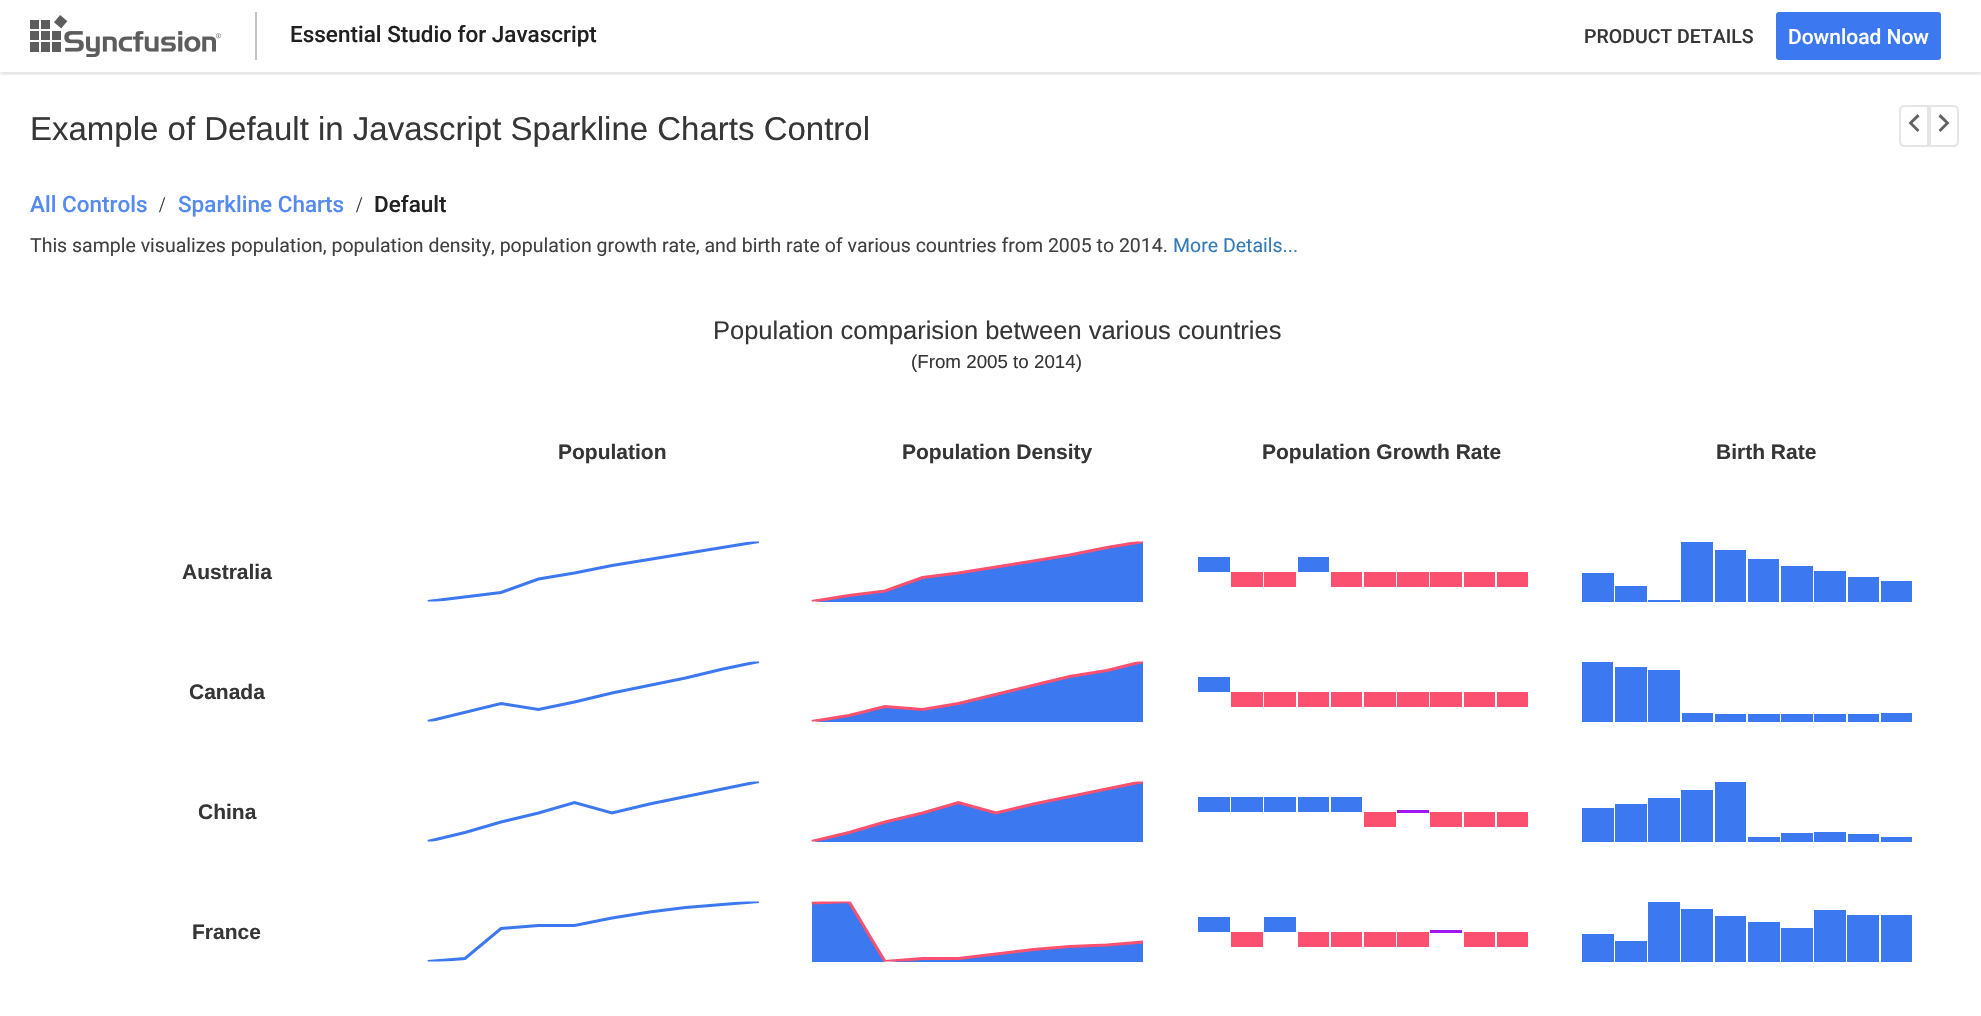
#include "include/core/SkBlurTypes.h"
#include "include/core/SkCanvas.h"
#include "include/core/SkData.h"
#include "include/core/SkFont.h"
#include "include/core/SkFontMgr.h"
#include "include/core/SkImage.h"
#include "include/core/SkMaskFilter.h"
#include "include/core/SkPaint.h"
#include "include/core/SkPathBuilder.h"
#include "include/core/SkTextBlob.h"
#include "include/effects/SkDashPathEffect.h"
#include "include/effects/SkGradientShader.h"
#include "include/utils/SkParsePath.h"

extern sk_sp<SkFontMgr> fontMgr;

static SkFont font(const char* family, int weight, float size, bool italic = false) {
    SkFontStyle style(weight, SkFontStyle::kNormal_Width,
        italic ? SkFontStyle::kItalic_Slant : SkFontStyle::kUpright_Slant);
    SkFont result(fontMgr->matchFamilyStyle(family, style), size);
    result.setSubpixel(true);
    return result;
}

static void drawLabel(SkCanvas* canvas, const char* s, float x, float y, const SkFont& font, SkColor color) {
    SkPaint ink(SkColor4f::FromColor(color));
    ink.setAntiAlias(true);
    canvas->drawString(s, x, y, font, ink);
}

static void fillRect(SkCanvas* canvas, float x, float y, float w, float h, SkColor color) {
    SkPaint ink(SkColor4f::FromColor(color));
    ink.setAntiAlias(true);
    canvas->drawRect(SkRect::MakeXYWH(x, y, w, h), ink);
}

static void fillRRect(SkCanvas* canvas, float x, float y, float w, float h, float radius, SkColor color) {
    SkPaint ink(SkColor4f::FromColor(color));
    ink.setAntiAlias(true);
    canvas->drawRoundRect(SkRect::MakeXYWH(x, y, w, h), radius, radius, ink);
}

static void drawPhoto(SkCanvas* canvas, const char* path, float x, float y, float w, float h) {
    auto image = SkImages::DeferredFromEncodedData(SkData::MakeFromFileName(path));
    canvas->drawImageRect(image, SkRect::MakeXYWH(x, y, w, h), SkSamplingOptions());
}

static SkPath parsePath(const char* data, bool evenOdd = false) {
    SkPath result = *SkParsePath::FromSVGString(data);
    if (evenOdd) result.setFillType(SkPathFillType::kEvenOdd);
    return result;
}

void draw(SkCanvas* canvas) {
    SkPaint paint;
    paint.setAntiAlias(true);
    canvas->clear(0xFFFFFFFF);
    canvas->save();
    canvas->clipRect(SkRect::MakeXYWH(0, 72, 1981, 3));
    paint.setColor(0x1F000000);
    paint.setMaskFilter(SkMaskFilter::MakeBlur(kNormal_SkBlurStyle, 3));
    canvas->drawRect(SkRect::MakeXYWH(0, 3, 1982, 72), paint);
    paint.setMaskFilter(nullptr);
    canvas->restore();
    drawPhoto(canvas, "assets/img1.png", 30, 15, 191, 42);
    fillRect(canvas, 255, 12, 2, 48, 0xFFC4C4C4);
    SkFont font1 = font("Roboto", 500, 22.5f);
    drawLabel(canvas, "Essential Studio for Javascript", 290, 42, font1, 0xFF212121);
    SkFont font2 = font("Roboto", 500, 19.5f);
    drawLabel(canvas, "PRODUCT DETAILS", 1584, 43, font2, 0xFF363636);
    fillRRect(canvas, 1776, 12, 165, 48, 3, 0xFF3C78EF);
    SkFont font3 = font("Roboto", 500, 21);
    drawLabel(canvas, "Download Now", 1788, 44, font3, 0xFFFFFFFF);
    fillRect(canvas, 0, 75, 1981, 4, 0xFFFFFFFF);
    SkFont font4 = font("Liberation Sans", 400, 33);
    drawLabel(canvas, "Example of Default in Javascript Sparkline Charts Control", 30, 140, font4, 0xFF363636);
    paint.setStroke(true);
    paint.setStrokeWidth(2);
    paint.setColor(0xFFE5E5E5);
    canvas->drawPath(parsePath("M1905 106H1928V146H1905C1902 146 1900 144 1900 141V111C1900 108 1902 106 1905 106Z"), paint);
    paint.setStroke(false);
    paint.setColor(0xFF636363);
    canvas->drawPath(parsePath("M1919.5 130L1912.5 123L1919.5 116.5L1917.5 114L1908.5 123L1917.5 132Z"), paint);
    paint.setStroke(true);
    paint.setColor(0xFFE5E5E5);
    canvas->drawPath(parsePath("M1930 106H1953C1956 106 1958 108 1958 111V141C1958 144 1956 146 1953 146H1930Z"), paint);
    paint.setStroke(false);
    paint.setColor(0xFF636363);
    canvas->drawPath(parsePath("M1938.5 130L1945.5 123L1938.5 116.5L1940.5 114L1949.5 123L1940.5 132Z"), paint);
    drawLabel(canvas, "All Controls", 30, 212, font1, 0xFF558AF1);
    SkFont font5 = font("Liberation Serif", 400, 22.5f);
    drawLabel(canvas, "/", 159, 212, font5, 0xFF363636);
    drawLabel(canvas, "Sparkline Charts", 178, 212, font1, 0xFF558AF1);
    drawLabel(canvas, "/", 356, 212, font5, 0xFF363636);
    drawLabel(canvas, "Default", 374, 212, font1, 0xFF212121);
    SkFont font6 = font("Roboto", 400, 19.5f);
    drawLabel(canvas, "This sample visualizes population, population density, population growth rate, and birth rate of various countries from 2005 to 2014.", 30, 252, font6, 0xFF404040);
    drawLabel(canvas, "More Details...", 1173, 252, font6, 0xFF337AB7);
    SkFont font7 = font("Liberation Sans", 400, 25.5f);
    drawLabel(canvas, "Population comparision between various countries", 713, 339, font7, 0xFF363636);
    SkFont font8 = font("Liberation Sans", 400, 18.75f);
    drawLabel(canvas, "(From 2005 to 2014)", 911, 368, font8, 0xFF363636);
    SkFont font9 = font("Liberation Sans", 700, 21);
    drawLabel(canvas, "Population", 558, 459, font9, 0xFF363636);
    drawLabel(canvas, "Population Density", 902, 459, font9, 0xFF363636);
    drawLabel(canvas, "Population Growth Rate", 1262, 459, font9, 0xFF363636);
    drawLabel(canvas, "Birth Rate", 1716, 459, font9, 0xFF363636);
    drawLabel(canvas, "Australia", 182, 579, font9, 0xFF363636);
    canvas->save();
    canvas->clipPath(parsePath("M427.5 541.5H759.5V601.5H427.5Z"), true);
    paint.setStroke(true);
    paint.setStrokeWidth(3);
    paint.setColor(0xFF3C78EF);
    canvas->drawPath(parsePath("M427.5 601.5L501 592.5L538.5 579L574.5 573L612 565.5L759 541.5"), paint);
    canvas->restore();
    paint.setStroke(false);
    canvas->drawPath(parsePath("M1143 602H815L849 596L885 591L922 578L958 573L1034 561L1143 542Z"), paint);
    canvas->save();
    canvas->clipPath(parsePath("M811.5 541.5H1143.5V601.5H811.5Z"), true);
    paint.setStroke(true);
    paint.setColor(0xFFFC5070);
    canvas->drawPath(parsePath("M811.5 601.5L849 595.5L885 591L922.5 577.5L958.5 573L1033.5 561L1069.5 555L1107 547.5L1143 541.5"), paint);
    canvas->restore();
    fillRect(canvas, 1198, 557, 32, 15, 0xFF3C78EF);
    fillRect(canvas, 1298, 557, 31, 15, 0xFF3C78EF);
    fillRect(canvas, 1231, 572, 32, 15, 0xFFFC5070);
    fillRect(canvas, 1264, 572, 32, 15, 0xFFFC5070);
    fillRect(canvas, 1331, 572, 31, 15, 0xFFFC5070);
    fillRect(canvas, 1364, 572, 32, 15, 0xFFFC5070);
    fillRect(canvas, 1397, 572, 32, 15, 0xFFFC5070);
    fillRect(canvas, 1430, 572, 32, 15, 0xFFFC5070);
    fillRect(canvas, 1464, 572, 31, 15, 0xFFFC5070);
    fillRect(canvas, 1497, 572, 31, 15, 0xFFFC5070);
    fillRect(canvas, 1582, 573, 32, 29, 0xFF3C78EF);
    fillRect(canvas, 1615, 586, 32, 16, 0xFF3C78EF);
    fillRect(canvas, 1648, 600, 32, 2, 0xFF3C78EF);
    fillRect(canvas, 1681, 542, 32, 60, 0xFF3C78EF);
    fillRect(canvas, 1715, 550, 31, 52, 0xFF3C78EF);
    fillRect(canvas, 1748, 559, 31, 43, 0xFF3C78EF);
    fillRect(canvas, 1781, 566, 32, 36, 0xFF3C78EF);
    fillRect(canvas, 1814, 571, 32, 31, 0xFF3C78EF);
    fillRect(canvas, 1848, 577, 31, 25, 0xFF3C78EF);
    fillRect(canvas, 1881, 581, 31, 21, 0xFF3C78EF);
    drawLabel(canvas, "Canada", 189, 699, font9, 0xFF363636);
    canvas->save();
    canvas->clipPath(parsePath("M427.5 661.5H759.5V721.5H427.5Z"), true);
    paint.setColor(0xFF3C78EF);
    canvas->drawPath(parsePath("M427.5 721.5L501 703.5L538.5 709.5L574.5 702L612 693L685.5 678L723 669L759 661.5"), paint);
    canvas->restore();
    paint.setStroke(false);
    canvas->drawPath(parsePath("M1143 722H815L849 716L885 706L922 710L958 704L1070 676L1107 670L1143 662Z"), paint);
    canvas->save();
    canvas->clipPath(parsePath("M811.5 661.5H1143.5V721.5H811.5Z"), true);
    paint.setStroke(true);
    paint.setColor(0xFFFC5070);
    canvas->drawPath(parsePath("M811.5 721.5L849 715.5L885 706.5L922.5 709.5L958.5 703.5L1069.5 676.5L1107 670.5L1143 661.5"), paint);
    canvas->restore();
    fillRect(canvas, 1198, 677, 32, 15, 0xFF3C78EF);
    fillRect(canvas, 1231, 692, 32, 15, 0xFFFC5070);
    fillRect(canvas, 1264, 692, 32, 15, 0xFFFC5070);
    fillRect(canvas, 1298, 692, 31, 15, 0xFFFC5070);
    fillRect(canvas, 1331, 692, 31, 15, 0xFFFC5070);
    fillRect(canvas, 1364, 692, 32, 15, 0xFFFC5070);
    fillRect(canvas, 1397, 692, 32, 15, 0xFFFC5070);
    fillRect(canvas, 1430, 692, 32, 15, 0xFFFC5070);
    fillRect(canvas, 1464, 692, 31, 15, 0xFFFC5070);
    fillRect(canvas, 1497, 692, 31, 15, 0xFFFC5070);
    fillRect(canvas, 1582, 662, 31, 60, 0xFF3C78EF);
    fillRect(canvas, 1615, 667, 32, 55, 0xFF3C78EF);
    fillRect(canvas, 1648, 670, 32, 52, 0xFF3C78EF);
    fillRect(canvas, 1682, 713, 31, 9, 0xFF3C78EF);
    fillRect(canvas, 1715, 714, 31, 8, 0xFF3C78EF);
    fillRect(canvas, 1748, 714, 32, 8, 0xFF3C78EF);
    fillRect(canvas, 1781, 714, 32, 8, 0xFF3C78EF);
    fillRect(canvas, 1814, 714, 32, 8, 0xFF3C78EF);
    fillRect(canvas, 1848, 714, 31, 8, 0xFF3C78EF);
    fillRect(canvas, 1881, 713, 31, 9, 0xFF3C78EF);
    drawLabel(canvas, "China", 198, 819, font9, 0xFF363636);
    canvas->save();
    canvas->clipPath(parsePath("M427.5 781.5H759.5V841.5H427.5Z"), true);
    paint.setColor(0xFF3C78EF);
    canvas->drawPath(parsePath("M427.5 841.5L465 832.5L501 822L538.5 813L574.5 802.5L612 813L649.5 804L759 781.5"), paint);
    canvas->restore();
    paint.setStroke(false);
    canvas->drawPath(parsePath("M1143 842H814L885 822L922 813L958 802L996 813L1034 804L1143 782Z"), paint);
    canvas->save();
    canvas->clipPath(parsePath("M811.5 781.5H1143.5V841.5H811.5Z"), true);
    paint.setStroke(true);
    paint.setColor(0xFFFC5070);
    canvas->drawPath(parsePath("M811.5 841.5L849 832.5L885 822L922.5 813L958.5 802.5L996 813L1033.5 804L1143 781.5"), paint);
    canvas->restore();
    fillRect(canvas, 1198, 797, 32, 15, 0xFF3C78EF);
    fillRect(canvas, 1231, 797, 32, 15, 0xFF3C78EF);
    fillRect(canvas, 1264, 797, 32, 15, 0xFF3C78EF);
    fillRect(canvas, 1298, 797, 31, 15, 0xFF3C78EF);
    fillRect(canvas, 1331, 797, 31, 15, 0xFF3C78EF);
    fillRect(canvas, 1397, 810, 32, 3, 0xFFA216F3);
    fillRect(canvas, 1364, 812, 32, 15, 0xFFFC5070);
    fillRect(canvas, 1430, 812, 32, 15, 0xFFFC5070);
    fillRect(canvas, 1464, 812, 31, 15, 0xFFFC5070);
    fillRect(canvas, 1497, 812, 31, 15, 0xFFFC5070);
    fillRect(canvas, 1582, 808, 32, 34, 0xFF3C78EF);
    fillRect(canvas, 1615, 804, 32, 38, 0xFF3C78EF);
    fillRect(canvas, 1648, 798, 32, 44, 0xFF3C78EF);
    fillRect(canvas, 1681, 790, 32, 52, 0xFF3C78EF);
    fillRect(canvas, 1715, 782, 31, 60, 0xFF3C78EF);
    fillRect(canvas, 1748, 837, 32, 5, 0xFF3C78EF);
    fillRect(canvas, 1781, 833, 32, 9, 0xFF3C78EF);
    fillRect(canvas, 1814, 832, 32, 10, 0xFF3C78EF);
    fillRect(canvas, 1848, 834, 31, 8, 0xFF3C78EF);
    fillRect(canvas, 1881, 837, 31, 5, 0xFF3C78EF);
    drawLabel(canvas, "France", 192, 939, font9, 0xFF363636);
    canvas->save();
    canvas->clipPath(parsePath("M427.5 901.5H759.5V961.5H427.5Z"), true);
    paint.setColor(0xFF3C78EF);
    canvas->drawPath(parsePath("M427.5 961.5L465 958.5L501 928.5L538.5 925.5H574.5L612 918L649.5 912L685.5 907.5L759 901.5"), paint);
    canvas->restore();
    paint.setStroke(false);
    canvas->drawPath(parsePath("M1143 962V942L1107 945L1070 946L958 958H922L890 962ZM885 962L849 902L812 903V962Z", true), paint);
    canvas->save();
    canvas->clipPath(parsePath("M811.5 901.5H1143.5V961.5H811.5Z"), true);
    paint.setStroke(true);
    paint.setColor(0xFFFC5070);
    canvas->drawPath(parsePath("M811.5 903L849 901.5L885 961.5L922.5 958.5H958.5L1033.5 949.5L1069.5 946.5L1107 945L1143 942"), paint);
    canvas->restore();
    fillRect(canvas, 1198, 917, 32, 15, 0xFF3C78EF);
    fillRect(canvas, 1264, 917, 32, 15, 0xFF3C78EF);
    fillRect(canvas, 1430, 930, 32, 3, 0xFFA216F3);
    fillRect(canvas, 1231, 932, 32, 15, 0xFFFC5070);
    fillRect(canvas, 1298, 932, 31, 15, 0xFFFC5070);
    fillRect(canvas, 1331, 932, 31, 15, 0xFFFC5070);
    fillRect(canvas, 1364, 932, 32, 15, 0xFFFC5070);
    fillRect(canvas, 1397, 932, 32, 15, 0xFFFC5070);
    fillRect(canvas, 1464, 932, 31, 15, 0xFFFC5070);
    fillRect(canvas, 1497, 932, 31, 15, 0xFFFC5070);
    fillRect(canvas, 1582, 934, 32, 28, 0xFF3C78EF);
    fillRect(canvas, 1615, 941, 32, 21, 0xFF3C78EF);
    fillRect(canvas, 1648, 902, 32, 60, 0xFF3C78EF);
    fillRect(canvas, 1681, 909, 32, 53, 0xFF3C78EF);
    fillRect(canvas, 1715, 916, 31, 46, 0xFF3C78EF);
    fillRect(canvas, 1748, 922, 32, 40, 0xFF3C78EF);
    fillRect(canvas, 1781, 928, 32, 34, 0xFF3C78EF);
    fillRect(canvas, 1814, 910, 32, 52, 0xFF3C78EF);
    fillRect(canvas, 1847, 915, 32, 47, 0xFF3C78EF);
    fillRect(canvas, 1881, 915, 31, 47, 0xFF3C78EF);
}
